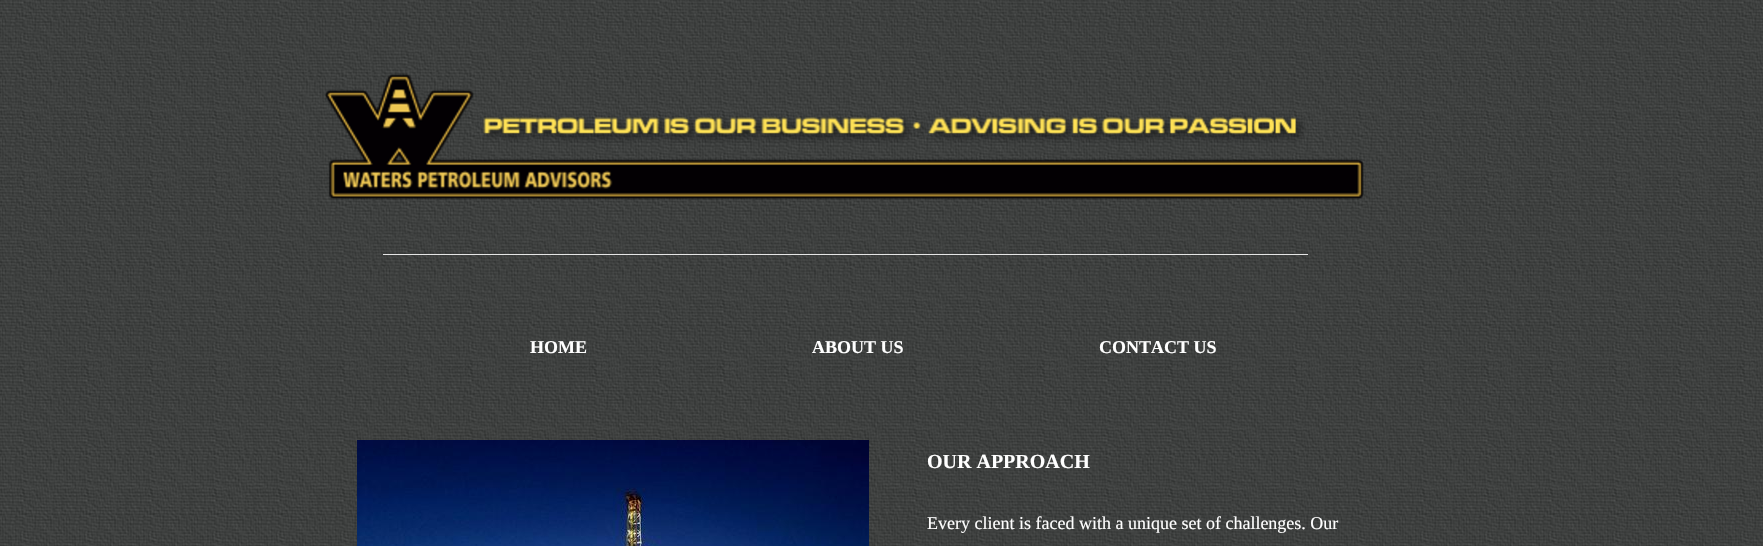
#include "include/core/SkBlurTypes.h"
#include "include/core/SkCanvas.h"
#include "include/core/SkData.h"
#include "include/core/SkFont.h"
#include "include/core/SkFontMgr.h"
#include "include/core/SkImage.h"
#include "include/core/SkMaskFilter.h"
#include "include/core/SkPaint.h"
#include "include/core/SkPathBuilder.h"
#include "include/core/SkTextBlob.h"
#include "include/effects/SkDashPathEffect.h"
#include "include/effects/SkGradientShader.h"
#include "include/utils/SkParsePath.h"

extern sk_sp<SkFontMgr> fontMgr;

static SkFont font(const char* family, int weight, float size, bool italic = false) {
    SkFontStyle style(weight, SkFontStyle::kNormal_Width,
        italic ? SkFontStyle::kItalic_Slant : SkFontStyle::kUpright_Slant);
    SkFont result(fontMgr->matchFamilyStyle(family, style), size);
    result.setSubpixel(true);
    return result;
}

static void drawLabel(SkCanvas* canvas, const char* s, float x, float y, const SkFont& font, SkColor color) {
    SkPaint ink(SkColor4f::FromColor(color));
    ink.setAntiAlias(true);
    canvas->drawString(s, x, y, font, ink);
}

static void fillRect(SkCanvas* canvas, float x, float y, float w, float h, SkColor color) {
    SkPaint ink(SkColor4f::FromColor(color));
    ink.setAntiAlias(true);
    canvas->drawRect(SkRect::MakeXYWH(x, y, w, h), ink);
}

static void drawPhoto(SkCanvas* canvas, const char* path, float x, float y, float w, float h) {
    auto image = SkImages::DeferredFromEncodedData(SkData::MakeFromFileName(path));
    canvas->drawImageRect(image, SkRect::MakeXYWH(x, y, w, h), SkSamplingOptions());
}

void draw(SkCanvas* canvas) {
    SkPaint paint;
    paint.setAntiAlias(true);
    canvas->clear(0xFFFFFFFF);
    drawPhoto(canvas, "assets/img1.png", 0, 0, 1763, 546);
    drawPhoto(canvas, "assets/img3.png", 482, 115, 823, 28);
    drawPhoto(canvas, "assets/img2.png", 325, 73, 1039, 127);
    fillRect(canvas, 383, 254, 925, 1, 0xFFE5E5E5);
    SkFont font1 = font("Liberation Serif", 700, 18);
    drawLabel(canvas, "HOME", 530, 353, font1, 0xFFFFFFFF);
    drawLabel(canvas, "ABOUT US", 812, 353, font1, 0xFFFFFFFF);
    drawLabel(canvas, "CONTACT US", 1099, 353, font1, 0xFFFFFFFF);
    drawPhoto(canvas, "assets/img4.png", 357, 440, 512, 106);
    SkFont font2 = font("Liberation Serif", 700, 20);
    drawLabel(canvas, "OUR APPROACH", 927, 468, font2, 0xFFFFFFFF);
    SkFont font3 = font("Liberation Serif", 400, 18);
    drawLabel(canvas, "Every client is faced with a unique set of challenges. Our", 927, 529, font3, 0xFFFFFFFF);
}
